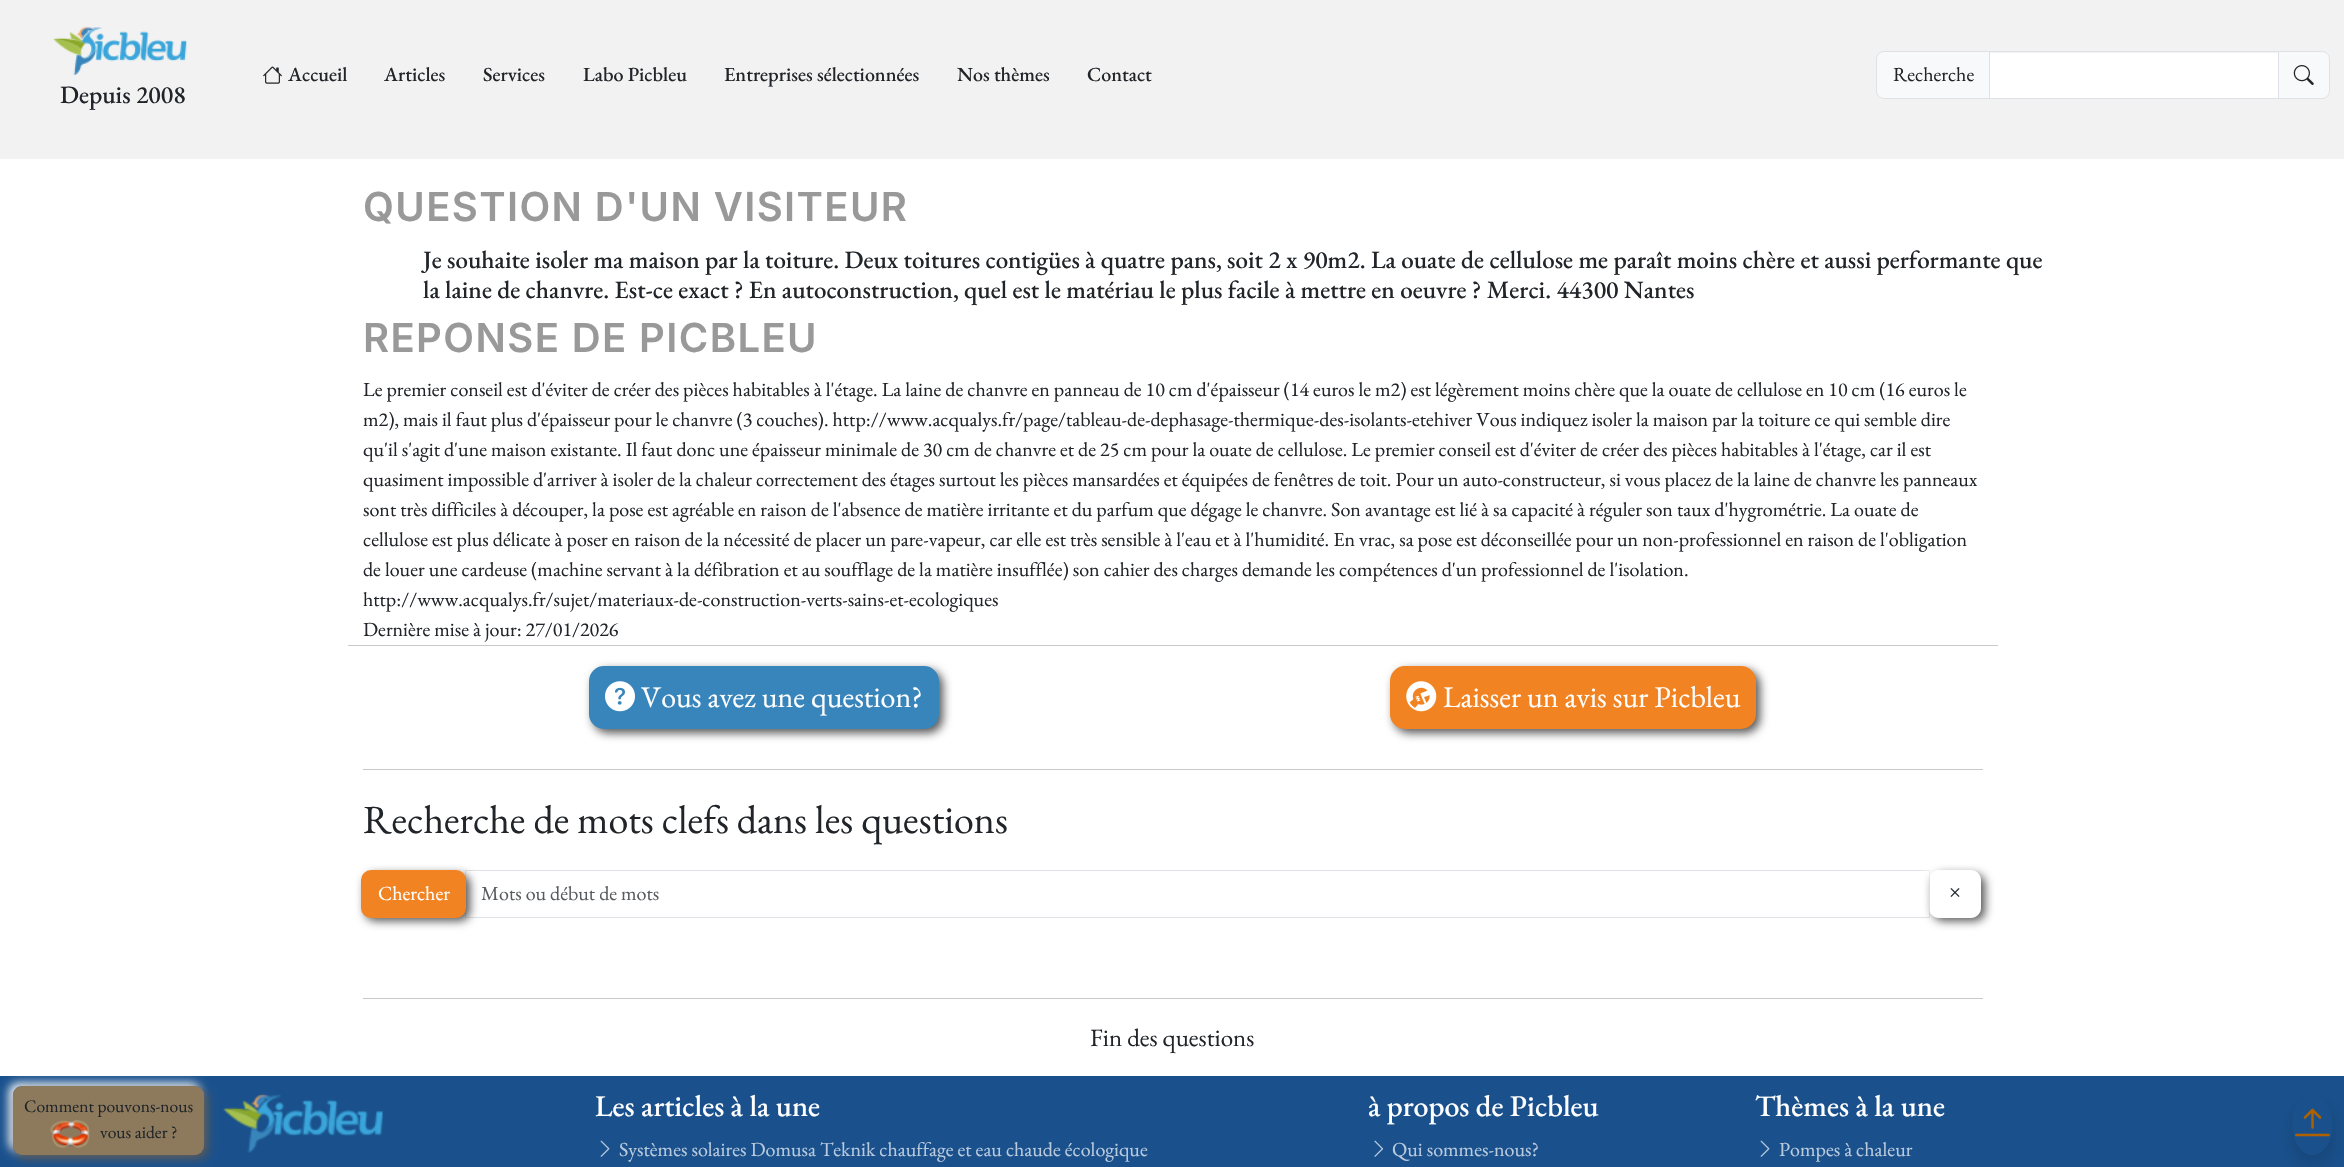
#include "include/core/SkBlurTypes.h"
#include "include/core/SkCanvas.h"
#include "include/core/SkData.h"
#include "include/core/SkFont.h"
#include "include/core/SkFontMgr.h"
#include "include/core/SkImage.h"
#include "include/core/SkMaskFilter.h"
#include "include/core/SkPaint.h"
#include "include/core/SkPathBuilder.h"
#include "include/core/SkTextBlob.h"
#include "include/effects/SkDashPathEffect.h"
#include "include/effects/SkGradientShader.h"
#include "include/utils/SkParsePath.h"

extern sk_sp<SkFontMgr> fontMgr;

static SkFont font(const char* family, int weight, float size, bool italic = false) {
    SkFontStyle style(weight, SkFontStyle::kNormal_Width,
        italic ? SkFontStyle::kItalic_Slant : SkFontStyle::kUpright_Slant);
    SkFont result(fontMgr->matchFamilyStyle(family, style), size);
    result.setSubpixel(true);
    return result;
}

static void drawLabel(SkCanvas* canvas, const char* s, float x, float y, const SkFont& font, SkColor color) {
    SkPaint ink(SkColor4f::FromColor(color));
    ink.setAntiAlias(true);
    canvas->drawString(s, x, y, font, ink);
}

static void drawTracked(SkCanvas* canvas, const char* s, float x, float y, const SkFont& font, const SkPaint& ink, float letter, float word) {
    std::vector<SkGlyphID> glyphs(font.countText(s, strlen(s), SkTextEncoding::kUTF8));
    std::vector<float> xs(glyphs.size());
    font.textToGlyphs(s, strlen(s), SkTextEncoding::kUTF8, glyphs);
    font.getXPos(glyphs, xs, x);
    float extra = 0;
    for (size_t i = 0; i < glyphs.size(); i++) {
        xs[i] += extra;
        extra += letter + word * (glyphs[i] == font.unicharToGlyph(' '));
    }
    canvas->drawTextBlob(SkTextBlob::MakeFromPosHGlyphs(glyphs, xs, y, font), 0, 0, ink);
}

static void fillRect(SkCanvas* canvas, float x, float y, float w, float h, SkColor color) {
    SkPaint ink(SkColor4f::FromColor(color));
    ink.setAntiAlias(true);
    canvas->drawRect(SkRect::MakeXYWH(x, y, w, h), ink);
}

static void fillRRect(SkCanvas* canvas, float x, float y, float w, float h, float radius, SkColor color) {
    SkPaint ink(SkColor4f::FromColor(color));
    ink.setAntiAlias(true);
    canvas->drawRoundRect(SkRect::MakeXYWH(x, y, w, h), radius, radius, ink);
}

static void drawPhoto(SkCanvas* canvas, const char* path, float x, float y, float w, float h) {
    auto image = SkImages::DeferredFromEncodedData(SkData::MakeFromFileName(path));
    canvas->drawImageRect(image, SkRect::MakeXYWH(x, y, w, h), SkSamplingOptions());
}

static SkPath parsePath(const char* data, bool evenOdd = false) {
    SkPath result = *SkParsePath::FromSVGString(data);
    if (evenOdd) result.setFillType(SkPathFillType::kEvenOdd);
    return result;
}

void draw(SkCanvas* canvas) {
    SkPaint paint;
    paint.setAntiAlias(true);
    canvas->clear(0xFFFFFFFF);
    fillRect(canvas, 0, 0, 2344, 159, 0xFFF2F2F2);
    drawPhoto(canvas, "assets/img1.png", 263, 66, 19, 18);
    SkFont font1 = font("EB Garamond", 500, 20);
    drawLabel(canvas, "Accueil", 288, 81, font1, 0xFF212529);
    drawLabel(canvas, "Articles", 384, 81, font1, 0xFF212529);
    drawLabel(canvas, "Services", 483, 81, font1, 0xFF212529);
    drawLabel(canvas, "Labo Picbleu", 583, 81, font1, 0xFF212529);
    drawLabel(canvas, "Entreprises sélectionnées", 724, 81, font1, 0xFF212529);
    drawLabel(canvas, "Nos thèmes", 957, 81, font1, 0xFF212529);
    drawLabel(canvas, "Contact", 1087, 81, font1, 0xFF212529);
    paint.setColor(0xFFF8F9FA);
    canvas->drawPath(parsePath("M1884 51.5H1989.5V98.5H1884C1880 98.5 1876.5 95 1876.5 91V59C1876.5 55 1880 51.5 1884 51.5Z"), paint);
    paint.setStroke(true);
    paint.setStrokeWidth(1);
    paint.setColor(0xFFDEE2E6);
    canvas->drawPath(parsePath("M1884 51.5H1989.5V98.5H1884C1880 98.5 1876.5 95 1876.5 91V59C1876.5 55 1880 51.5 1884 51.5Z"), paint);
    SkFont font2 = font("EB Garamond", 400, 20);
    drawLabel(canvas, "Recherche", 1893, 81, font2, 0xFF212529);
    fillRect(canvas, 1990, 53, 288, 45, 0xFFFFFFFF);
    paint.setStroke(false);
    paint.setColor(0xFFF8F9FA);
    canvas->drawPath(parsePath("M2278.5 51.5H2322C2326 51.5 2329.5 55 2329.5 59V91C2329.5 95 2326 98.5 2322 98.5H2278.5Z"), paint);
    paint.setStroke(true);
    paint.setColor(0xFFDEE2E6);
    canvas->drawPath(parsePath("M2278.5 51.5H2322C2326 51.5 2329.5 55 2329.5 59V91C2329.5 95 2326 98.5 2322 98.5H2278.5Z"), paint);
    canvas->drawRect(SkRect::MakeXYWH(1989.5f, 51.5f, 289, 47), paint);
    drawPhoto(canvas, "assets/img2.png", 2293, 65, 21, 20);
    drawPhoto(canvas, "assets/img3.png", 53, 26, 134, 49);
    SkFont font3 = font("EB Garamond", 500, 25);
    drawLabel(canvas, "Depuis 2008", 60, 103, font3, 0xFF212529);
    SkFont font4 = font("Inter", 600, 40);
    paint.setStroke(false);
    paint.setColor(0xFF999999);
    drawTracked(canvas, "QUESTION D'UN VISITEUR", 363, 221, font4, paint, 1.4f, 0);
    drawLabel(canvas, "Je souhaite isoler ma maison par la toiture. Deux toitures contigües à quatre pans, soit 2 x 90m2. La ouate de cellulose me paraît moins chère et aussi performante que", 423, 268, font3, 0xFF212529);
    drawLabel(canvas, "la laine de chanvre. Est-ce exact ? En autoconstruction, quel est le matériau le plus facile à mettre en oeuvre ? Merci. 44300 Nantes", 423, 298, font3, 0xFF212529);
    drawTracked(canvas, "REPONSE DE PICBLEU", 363, 352, font4, paint, 1.4f, 0);
    drawLabel(canvas, "Le premier conseil est d'éviter de créer des pièces habitables à l'étage. La laine de chanvre en panneau de 10 cm d'épaisseur (14 euros le m2) est légèrement moins chère que la ouate de cellulose en 10 cm (16 euros le", 363, 396, font2, 0xFF212529);
    drawLabel(canvas, "m2), mais il faut plus d'épaisseur pour le chanvre (3 couches). http://www.acqualys.fr/page/tableau-de-dephasage-thermique-des-isolants-etehiver Vous indiquez isoler la maison par la toiture ce qui semble dire", 363, 426, font2, 0xFF212529);
    drawLabel(canvas, "qu'il s'agit d'une maison existante. Il faut donc une épaisseur minimale de 30 cm de chanvre et de 25 cm pour la ouate de cellulose. Le premier conseil est d'éviter de créer des pièces habitables à l'étage, car il est", 363, 456, font2, 0xFF212529);
    drawLabel(canvas, "quasiment impossible d'arriver à isoler de la chaleur correctement des étages surtout les pièces mansardées et équipées de fenêtres de toit. Pour un auto-constructeur, si vous placez de la laine de chanvre les panneaux", 363, 486, font2, 0xFF212529);
    drawLabel(canvas, "sont très difficiles à découper, la pose est agréable en raison de l'absence de matière irritante et du parfum que dégage le chanvre. Son avantage est lié à sa capacité à réguler son taux d'hygrométrie. La ouate de", 363, 516, font2, 0xFF212529);
    drawLabel(canvas, "cellulose est plus délicate à poser en raison de la nécessité de placer un pare-vapeur, car elle est très sensible à l'eau et à l'humidité. En vrac, sa pose est déconseillée pour un non-professionnel en raison de l'obligation", 363, 546, font2, 0xFF212529);
    drawLabel(canvas, "de louer une cardeuse (machine servant à la défibration et au soufflage de la matière insufflée) son cahier des charges demande les compétences d'un professionnel de l'isolation.", 363, 576, font2, 0xFF212529);
    drawLabel(canvas, "http://www.acqualys.fr/sujet/materiaux-de-construction-verts-sains-et-ecologiques", 363, 606, font2, 0xFF212529);
    drawLabel(canvas, "Dernière mise à jour: 27/01/2026", 363, 636, font2, 0xFF212529);
    fillRect(canvas, 348, 645, 1650, 1, 0xFFC8C9CA);
    paint.setColor(0xFF555555);
    paint.setMaskFilter(SkMaskFilter::MakeBlur(kNormal_SkBlurStyle, 5));
    canvas->drawRoundRect(SkRect::MakeXYWH(593, 670, 350, 63), 15, 15, paint);
    paint.setMaskFilter(nullptr);
    fillRRect(canvas, 589, 666, 350, 63, 15, 0xFF3885BC);
    drawPhoto(canvas, "assets/img4.png", 605, 681, 30, 31);
    SkFont font5 = font("EB Garamond", 400, 30);
    drawLabel(canvas, "Vous avez une question?", 641, 707, font5, 0xFFFFFFFF);
    paint.setMaskFilter(SkMaskFilter::MakeBlur(kNormal_SkBlurStyle, 5));
    canvas->drawRoundRect(SkRect::MakeXYWH(1394, 670, 366, 63), 15, 15, paint);
    paint.setMaskFilter(nullptr);
    fillRRect(canvas, 1390, 666, 366, 63, 15, 0xFFF18322);
    drawPhoto(canvas, "assets/img5.png", 1406, 681, 31, 31);
    drawLabel(canvas, "Laisser un avis sur Picbleu", 1443, 707, font5, 0xFFFFFFFF);
    fillRect(canvas, 363, 769, 1620, 1, 0xFFC8C9CA);
    SkFont font6 = font("EB Garamond", 400, 40);
    drawLabel(canvas, "Recherche de mots clefs dans les questions", 363, 833, font6, 0xFF212529);
    paint.setStroke(true);
    paint.setColor(0xFFDEE2E6);
    canvas->drawRect(SkRect::MakeXYWH(465.5f, 870.5f, 1464, 47), paint);
    paint.setStroke(false);
    paint.setColor(0xFFFFFFFF);
    paint.setMaskFilter(SkMaskFilter::MakeBlur(kNormal_SkBlurStyle, 5));
    canvas->drawRoundRect(SkRect::MakeXYWH(358, 866, 105, 48), 10, 10, paint);
    paint.setMaskFilter(nullptr);
    paint.setColor(0xFF555555);
    paint.setMaskFilter(SkMaskFilter::MakeBlur(kNormal_SkBlurStyle, 5));
    canvas->drawRoundRect(SkRect::MakeXYWH(365, 874, 105, 47), 10, 10, paint);
    paint.setMaskFilter(nullptr);
    fillRRect(canvas, 361, 870, 105, 48, 10, 0xFFF18322);
    drawLabel(canvas, "Chercher", 378, 900, font2, 0xFFFFFFFF);
    drawLabel(canvas, "Mots ou début de mots", 481, 900, font2, 0xFF595C5F);
    canvas->save();
    canvas->clipPath(parsePath("M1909 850H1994V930H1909ZM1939 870H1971C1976.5 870 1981 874.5 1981 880V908C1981 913.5 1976.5 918 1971 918H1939C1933.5 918 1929 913.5 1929 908V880C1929 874.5 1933.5 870 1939 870Z", true), true);
    paint.setColor(0xFFFFFFFF);
    paint.setMaskFilter(SkMaskFilter::MakeBlur(kNormal_SkBlurStyle, 5));
    canvas->drawRoundRect(SkRect::MakeXYWH(1925, 866, 53, 48), 10, 10, paint);
    paint.setMaskFilter(nullptr);
    canvas->restore();
    canvas->save();
    canvas->clipPath(parsePath("M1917 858H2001V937H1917ZM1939 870H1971C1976.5 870 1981 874.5 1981 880V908C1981 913.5 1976.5 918 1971 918H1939C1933.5 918 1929 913.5 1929 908V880C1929 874.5 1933.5 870 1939 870Z", true), true);
    paint.setColor(0xFF555555);
    paint.setMaskFilter(SkMaskFilter::MakeBlur(kNormal_SkBlurStyle, 5));
    canvas->drawRoundRect(SkRect::MakeXYWH(1933, 874, 52, 47), 10, 10, paint);
    paint.setMaskFilter(nullptr);
    canvas->restore();
    drawPhoto(canvas, "assets/img6.png", 1950, 888, 10, 9);
    fillRect(canvas, 363, 998, 1620, 1, 0xFFC8C9CA);
    SkFont font7 = font("EB Garamond", 400, 25);
    drawLabel(canvas, "Fin des questions", 1090, 1046, font7, 0xFF212529);
    fillRect(canvas, 0, 1076, 2344, 91, 0xFF1A518D);
    canvas->save();
    canvas->clipPath(parsePath("M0 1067H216V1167H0ZM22 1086H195C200 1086 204 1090 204 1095V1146C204 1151 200 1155 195 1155H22C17 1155 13 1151 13 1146V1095C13 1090 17 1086 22 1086Z", true), true);
    paint.setColor(0xFFFFFFFF);
    paint.setMaskFilter(SkMaskFilter::MakeBlur(kNormal_SkBlurStyle, 5));
    canvas->drawRoundRect(SkRect::MakeXYWH(9, 1083, 191, 68), 9, 9, paint);
    paint.setMaskFilter(nullptr);
    canvas->restore();
    drawPhoto(canvas, "assets/img8.png", 223, 1093, 160, 60);
    canvas->save();
    canvas->clipPath(parsePath("M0 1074H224V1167H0ZM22 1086H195C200 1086 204 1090 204 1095V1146C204 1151 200 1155 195 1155H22C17 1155 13 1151 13 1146V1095C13 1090 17 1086 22 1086Z", true), true);
    paint.setColor(0xFF555555);
    paint.setMaskFilter(SkMaskFilter::MakeBlur(kNormal_SkBlurStyle, 5));
    canvas->drawRoundRect(SkRect::MakeXYWH(16, 1090, 192, 69), 9, 9, paint);
    paint.setMaskFilter(nullptr);
    canvas->restore();
    fillRRect(canvas, 13, 1086, 191, 69, 9, 0x80FFA12D);
    SkFont font8 = font("EB Garamond", 400, 17.5f);
    drawLabel(canvas, "Comment pouvons-nous", 24, 1112, font8, 0xFF212529);
    drawPhoto(canvas, "assets/img7.png", 50, 1120, 40, 28);
    drawLabel(canvas, "vous aider ?", 100, 1138, font8, 0xFF212529);
    SkFont font9 = font("EB Garamond", 500, 30);
    drawLabel(canvas, "Les articles à la une", 595, 1116, font9, 0xFFFFFFFF);
    drawPhoto(canvas, "assets/img9.png", 600, 1140, 10, 17);
    drawLabel(canvas, "Systèmes solaires Domusa Teknik chauffage et eau chaude écologique", 619, 1156, font2, 0xFFBACBDD);
    drawLabel(canvas, "à propos de Picbleu", 1368, 1116, font9, 0xFFFFFFFF);
    drawPhoto(canvas, "assets/img10.png", 1374, 1140, 10, 17);
    drawLabel(canvas, "Qui sommes-nous?", 1392, 1156, font2, 0xFFBACBDD);
    drawLabel(canvas, "Thèmes à la une", 1755, 1116, font9, 0xFFFFFFFF);
    drawPhoto(canvas, "assets/img9.png", 1760, 1140, 10, 17);
    drawLabel(canvas, "Pompes à chaleur", 1779, 1156, font2, 0xFFBACBDD);
    canvas->save();
    canvas->clipPath(parsePath("M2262 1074H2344V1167H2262ZM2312.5 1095C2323.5 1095 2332.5 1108.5 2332.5 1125C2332.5 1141.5 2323.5 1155 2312.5 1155C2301.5 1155 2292.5 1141.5 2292.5 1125C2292.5 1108.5 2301.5 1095 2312.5 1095Z", true), true);
    paint.setColor(0x26000000);
    paint.setMaskFilter(SkMaskFilter::MakeBlur(kNormal_SkBlurStyle, 10));
    canvas->drawRoundRect(SkRect::MakeXYWH(2293, 1105, 40, 60), 20, 20, paint);
    paint.setMaskFilter(nullptr);
    canvas->restore();
    drawPhoto(canvas, "assets/img11.png", 2295, 1108, 35, 29);
}
